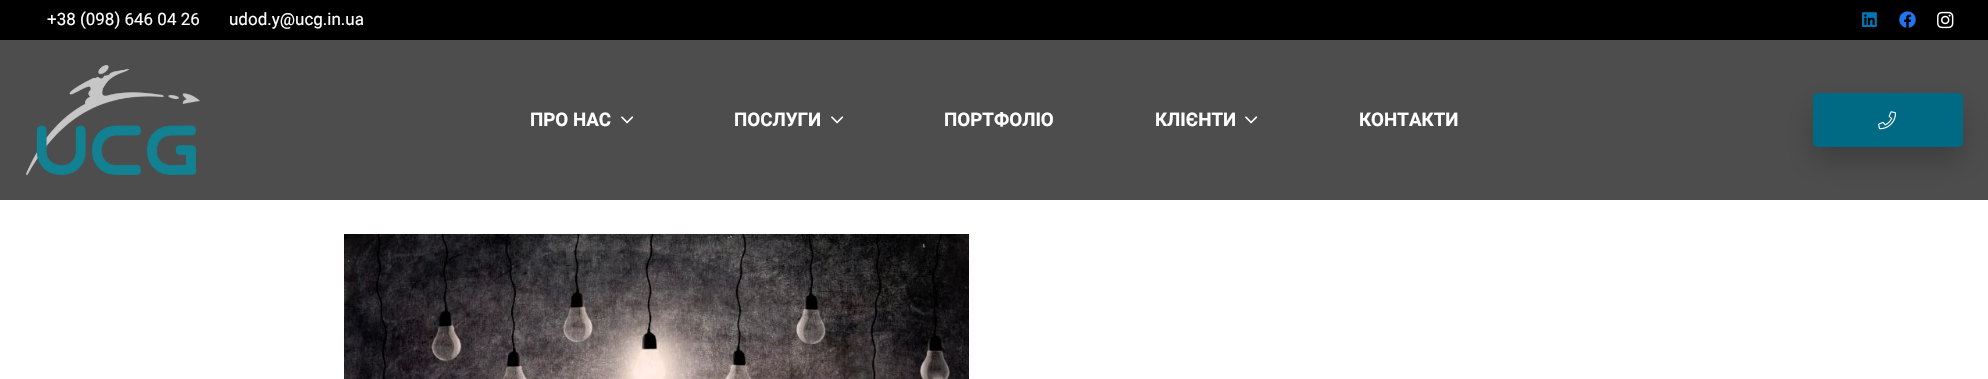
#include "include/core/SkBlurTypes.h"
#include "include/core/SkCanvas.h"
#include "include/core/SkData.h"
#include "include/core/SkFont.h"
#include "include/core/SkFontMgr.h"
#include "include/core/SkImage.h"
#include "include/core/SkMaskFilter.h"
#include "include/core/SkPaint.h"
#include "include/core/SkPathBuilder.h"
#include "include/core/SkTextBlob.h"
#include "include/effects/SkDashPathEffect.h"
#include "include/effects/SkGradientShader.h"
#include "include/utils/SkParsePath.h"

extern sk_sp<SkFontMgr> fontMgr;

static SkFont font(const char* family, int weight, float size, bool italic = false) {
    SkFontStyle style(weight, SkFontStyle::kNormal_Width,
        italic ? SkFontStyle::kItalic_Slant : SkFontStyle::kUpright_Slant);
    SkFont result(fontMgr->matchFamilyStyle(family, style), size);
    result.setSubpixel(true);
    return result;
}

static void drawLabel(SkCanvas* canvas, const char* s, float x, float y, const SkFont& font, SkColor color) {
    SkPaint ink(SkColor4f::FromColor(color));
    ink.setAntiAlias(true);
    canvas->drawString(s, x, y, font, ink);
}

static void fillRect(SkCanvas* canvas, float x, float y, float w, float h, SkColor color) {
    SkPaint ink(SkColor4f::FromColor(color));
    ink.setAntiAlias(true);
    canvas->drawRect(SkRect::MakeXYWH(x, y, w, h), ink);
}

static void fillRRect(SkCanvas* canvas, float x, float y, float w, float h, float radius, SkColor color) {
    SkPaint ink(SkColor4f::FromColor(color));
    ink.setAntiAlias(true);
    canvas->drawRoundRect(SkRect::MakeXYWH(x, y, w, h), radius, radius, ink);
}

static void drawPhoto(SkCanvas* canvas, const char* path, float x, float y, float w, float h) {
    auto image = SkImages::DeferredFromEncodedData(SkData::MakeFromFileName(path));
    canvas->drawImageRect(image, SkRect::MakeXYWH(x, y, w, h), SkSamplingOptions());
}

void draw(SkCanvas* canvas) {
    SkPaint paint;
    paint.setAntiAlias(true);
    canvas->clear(0xFFFFFFFF);
    fillRect(canvas, 0, 0, 1988, 40, 0xFF000000);
    SkFont font1 = font("Roboto", 400, 17);
    drawLabel(canvas, "+38 (098) 646 04 26", 47, 25, font1, 0xFFFFFFFF);
    drawLabel(canvas, "udod.y@ucg.in.ua", 229, 25, font1, 0xFFFFFFFF);
    drawPhoto(canvas, "assets/img1.png", 1862, 12, 15, 16);
    drawPhoto(canvas, "assets/img2.png", 1899, 11, 17, 17);
    drawPhoto(canvas, "assets/img3.png", 1937, 11, 17, 18);
    fillRect(canvas, 0, 40, 1988, 160, 0xFF4D4D4D);
    drawPhoto(canvas, "assets/img4.png", 26, 65, 174, 110);
    SkFont font2 = font("Roboto", 700, 18.75f);
    drawLabel(canvas, "ПРО НАС", 530, 126, font2, 0xFFFFFFFF);
    drawPhoto(canvas, "assets/img5.png", 621, 116, 12, 8);
    drawLabel(canvas, "ПОСЛУГИ", 734, 126, font2, 0xFFFFFFFF);
    drawPhoto(canvas, "assets/img5.png", 831, 116, 12, 8);
    drawLabel(canvas, "ПОРТФОЛІО", 944, 126, font2, 0xFFFFFFFF);
    drawLabel(canvas, "КЛІЄНТИ", 1155, 126, font2, 0xFFFFFFFF);
    drawPhoto(canvas, "assets/img6.png", 1245, 116, 13, 8);
    drawLabel(canvas, "КОНТАКТИ", 1359, 126, font2, 0xFFFFFFFF);
    paint.setColor(0x33000000);
    paint.setMaskFilter(SkMaskFilter::MakeBlur(kNormal_SkBlurStyle, 13.5f));
    canvas->drawRoundRect(SkRect::MakeXYWH(1813, 107, 150, 54), 5, 5, paint);
    paint.setMaskFilter(nullptr);
    fillRRect(canvas, 1813, 93, 150, 54, 5, 0xFF006983);
    drawPhoto(canvas, "assets/img7.png", 1878, 111, 18, 19);
    drawPhoto(canvas, "assets/img8.png", 344, 234, 625, 145);
}
